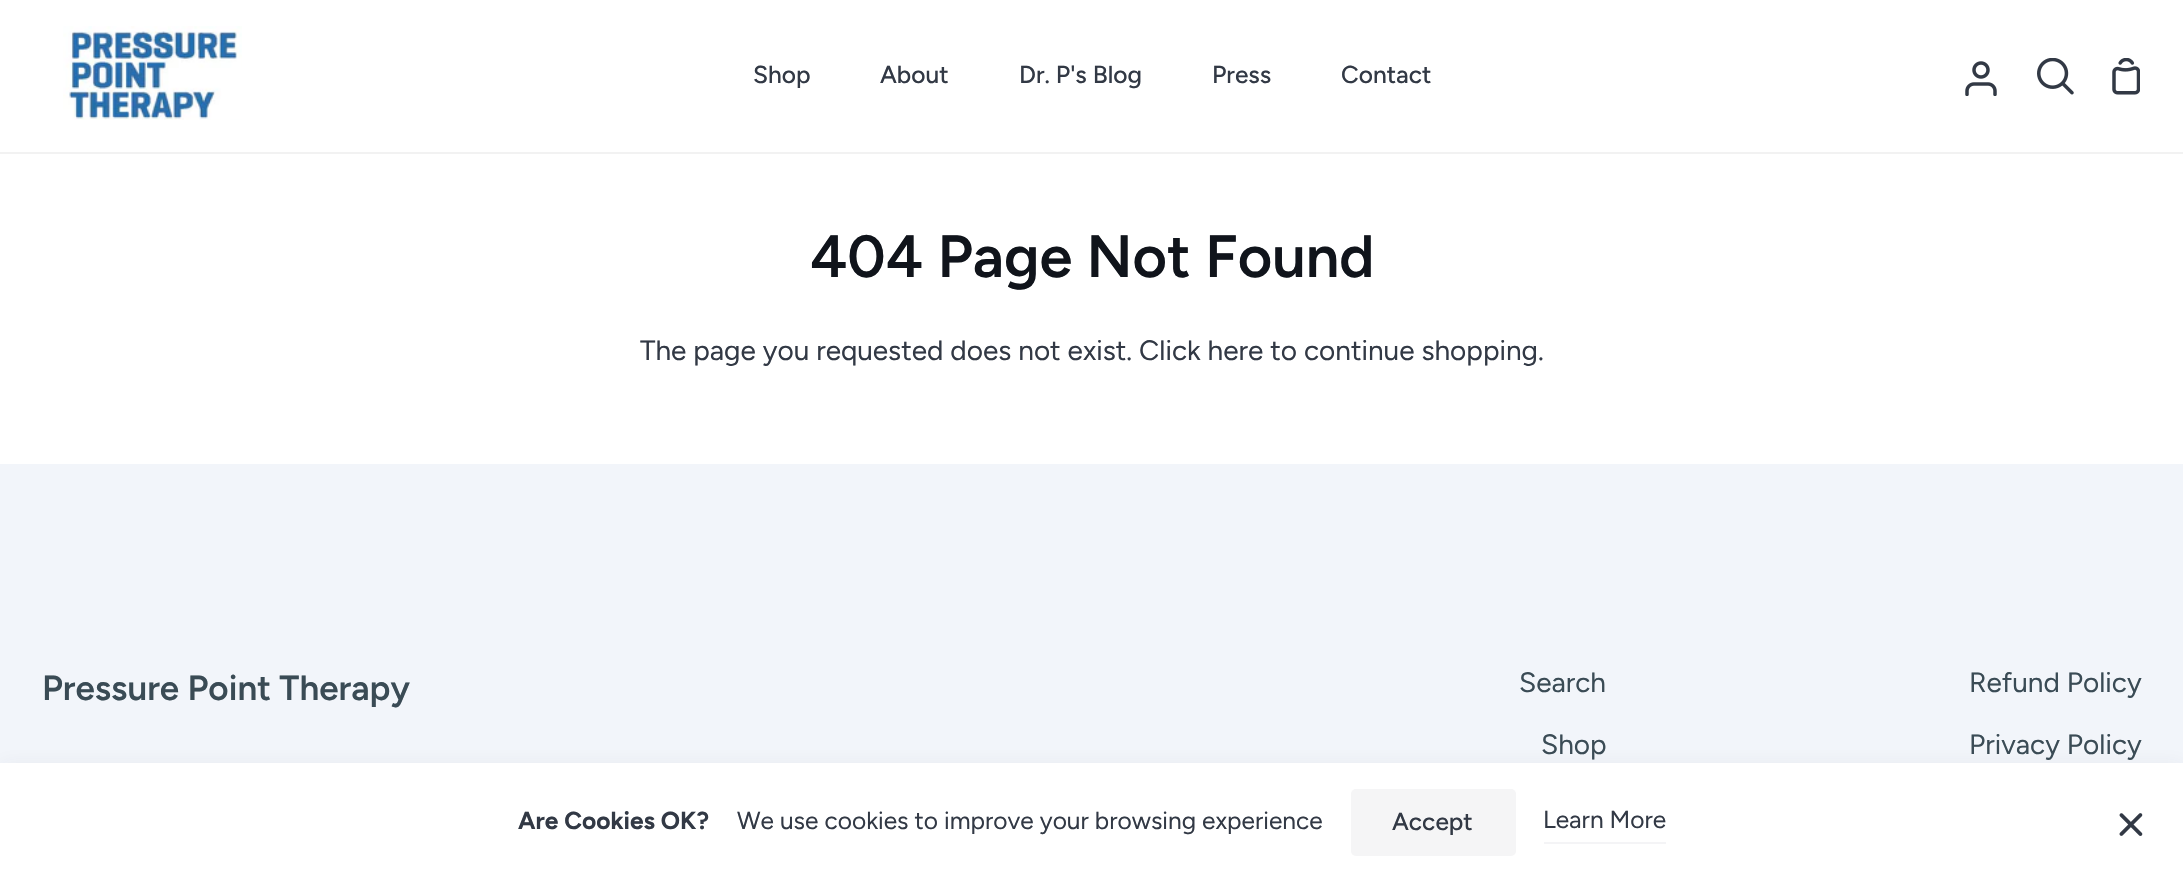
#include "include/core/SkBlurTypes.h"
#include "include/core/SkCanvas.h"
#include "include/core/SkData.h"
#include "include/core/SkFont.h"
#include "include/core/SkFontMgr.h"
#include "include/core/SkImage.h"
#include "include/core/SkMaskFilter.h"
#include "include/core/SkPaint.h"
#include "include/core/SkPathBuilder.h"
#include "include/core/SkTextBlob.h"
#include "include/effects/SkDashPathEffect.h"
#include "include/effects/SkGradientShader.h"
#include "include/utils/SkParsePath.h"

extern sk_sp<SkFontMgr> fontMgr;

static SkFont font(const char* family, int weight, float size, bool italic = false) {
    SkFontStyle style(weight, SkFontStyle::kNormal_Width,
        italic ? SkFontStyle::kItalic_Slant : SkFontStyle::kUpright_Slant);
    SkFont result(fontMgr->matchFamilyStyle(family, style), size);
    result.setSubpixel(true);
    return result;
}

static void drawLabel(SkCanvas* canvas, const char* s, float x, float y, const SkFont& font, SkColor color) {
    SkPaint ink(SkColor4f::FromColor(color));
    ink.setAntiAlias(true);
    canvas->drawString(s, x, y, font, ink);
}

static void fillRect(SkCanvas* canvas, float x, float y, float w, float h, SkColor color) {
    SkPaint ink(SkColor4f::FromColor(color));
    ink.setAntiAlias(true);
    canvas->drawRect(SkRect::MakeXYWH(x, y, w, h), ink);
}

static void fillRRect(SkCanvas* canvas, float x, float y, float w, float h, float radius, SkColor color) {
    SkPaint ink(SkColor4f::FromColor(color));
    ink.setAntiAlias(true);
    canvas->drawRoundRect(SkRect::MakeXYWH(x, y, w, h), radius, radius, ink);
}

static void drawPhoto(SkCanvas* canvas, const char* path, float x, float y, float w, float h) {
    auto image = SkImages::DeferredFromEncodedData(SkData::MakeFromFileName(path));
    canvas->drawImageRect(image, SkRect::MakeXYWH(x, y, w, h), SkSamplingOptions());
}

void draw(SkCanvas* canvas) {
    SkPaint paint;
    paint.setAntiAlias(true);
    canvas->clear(0xFFFFFFFF);
    fillRect(canvas, 0, 152, 2183, 2, 0xFFF2F2F2);
    drawPhoto(canvas, "assets/img1.png", 63, 26, 179, 94);
    SkFont font1 = font("Figtree", 500, 24.5f);
    drawLabel(canvas, "Shop", 753, 83, font1, 0xFF323945);
    drawLabel(canvas, "About", 880, 83, font1, 0xFF323945);
    drawLabel(canvas, "Dr. P's Blog", 1019, 83, font1, 0xFF323945);
    drawLabel(canvas, "Press", 1212, 83, font1, 0xFF323945);
    drawLabel(canvas, "Contact", 1341, 83, font1, 0xFF323945);
    drawPhoto(canvas, "assets/img2.png", 1965, 61, 32, 35);
    drawPhoto(canvas, "assets/img3.png", 2037, 58, 37, 37);
    drawPhoto(canvas, "assets/img4.png", 2112, 58, 28, 37);
    SkFont font2 = font("Figtree", 600, 59.5f);
    drawLabel(canvas, "404 Page Not Found", 810, 277, font2, 0xFF10141B);
    SkFont font3 = font("Figtree", 400, 28);
    drawLabel(canvas, "The page you requested does not exist. Click here to continue shopping.", 640, 360, font3, 0xFF323945);
    fillRect(canvas, 0, 464, 2183, 299, 0xFFF2F5FA);
    SkFont font4 = font("Figtree", 600, 35);
    drawLabel(canvas, "Pressure Point Therapy", 42, 700, font4, 0xFF3A4B55);
    drawLabel(canvas, "Search", 1519, 692, font3, 0xFF3A4B55);
    drawLabel(canvas, "Shop", 1541, 754, font3, 0xFF3A4B55);
    drawLabel(canvas, "Refund Policy", 1969, 692, font3, 0xFF3A4B55);
    drawLabel(canvas, "Privacy Policy", 1969, 754, font3, 0xFF3A4B55);
    paint.setColor(0x0D323945);
    paint.setMaskFilter(SkMaskFilter::MakeBlur(kNormal_SkBlurStyle, 9));
    canvas->drawRect(SkRect::MakeXYWH(0, 763, 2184, 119), paint);
    paint.setMaskFilter(nullptr);
    fillRect(canvas, 0, 763, 2183, 118, 0xFFFFFFFF);
    SkFont font5 = font("Figtree", 700, 24.5f);
    drawLabel(canvas, "Are Cookies OK?", 518, 829, font5, 0xFF323945);
    SkFont font6 = font("Figtree", 400, 24.5f);
    drawLabel(canvas, "We use cookies to improve your browsing experience", 737, 829, font6, 0xFF323945);
    fillRRect(canvas, 1351, 789, 165, 67, 5, 0xFFF5F5F6);
    drawLabel(canvas, "Accept", 1392, 830, font1, 0xFF323945);
    fillRect(canvas, 1544, 842, 122, 2, 0xFFF4F4F6);
    drawLabel(canvas, "Learn More", 1543, 828, font6, 0xFF323945);
    drawPhoto(canvas, "assets/img5.png", 2119, 813, 24, 23);
}
